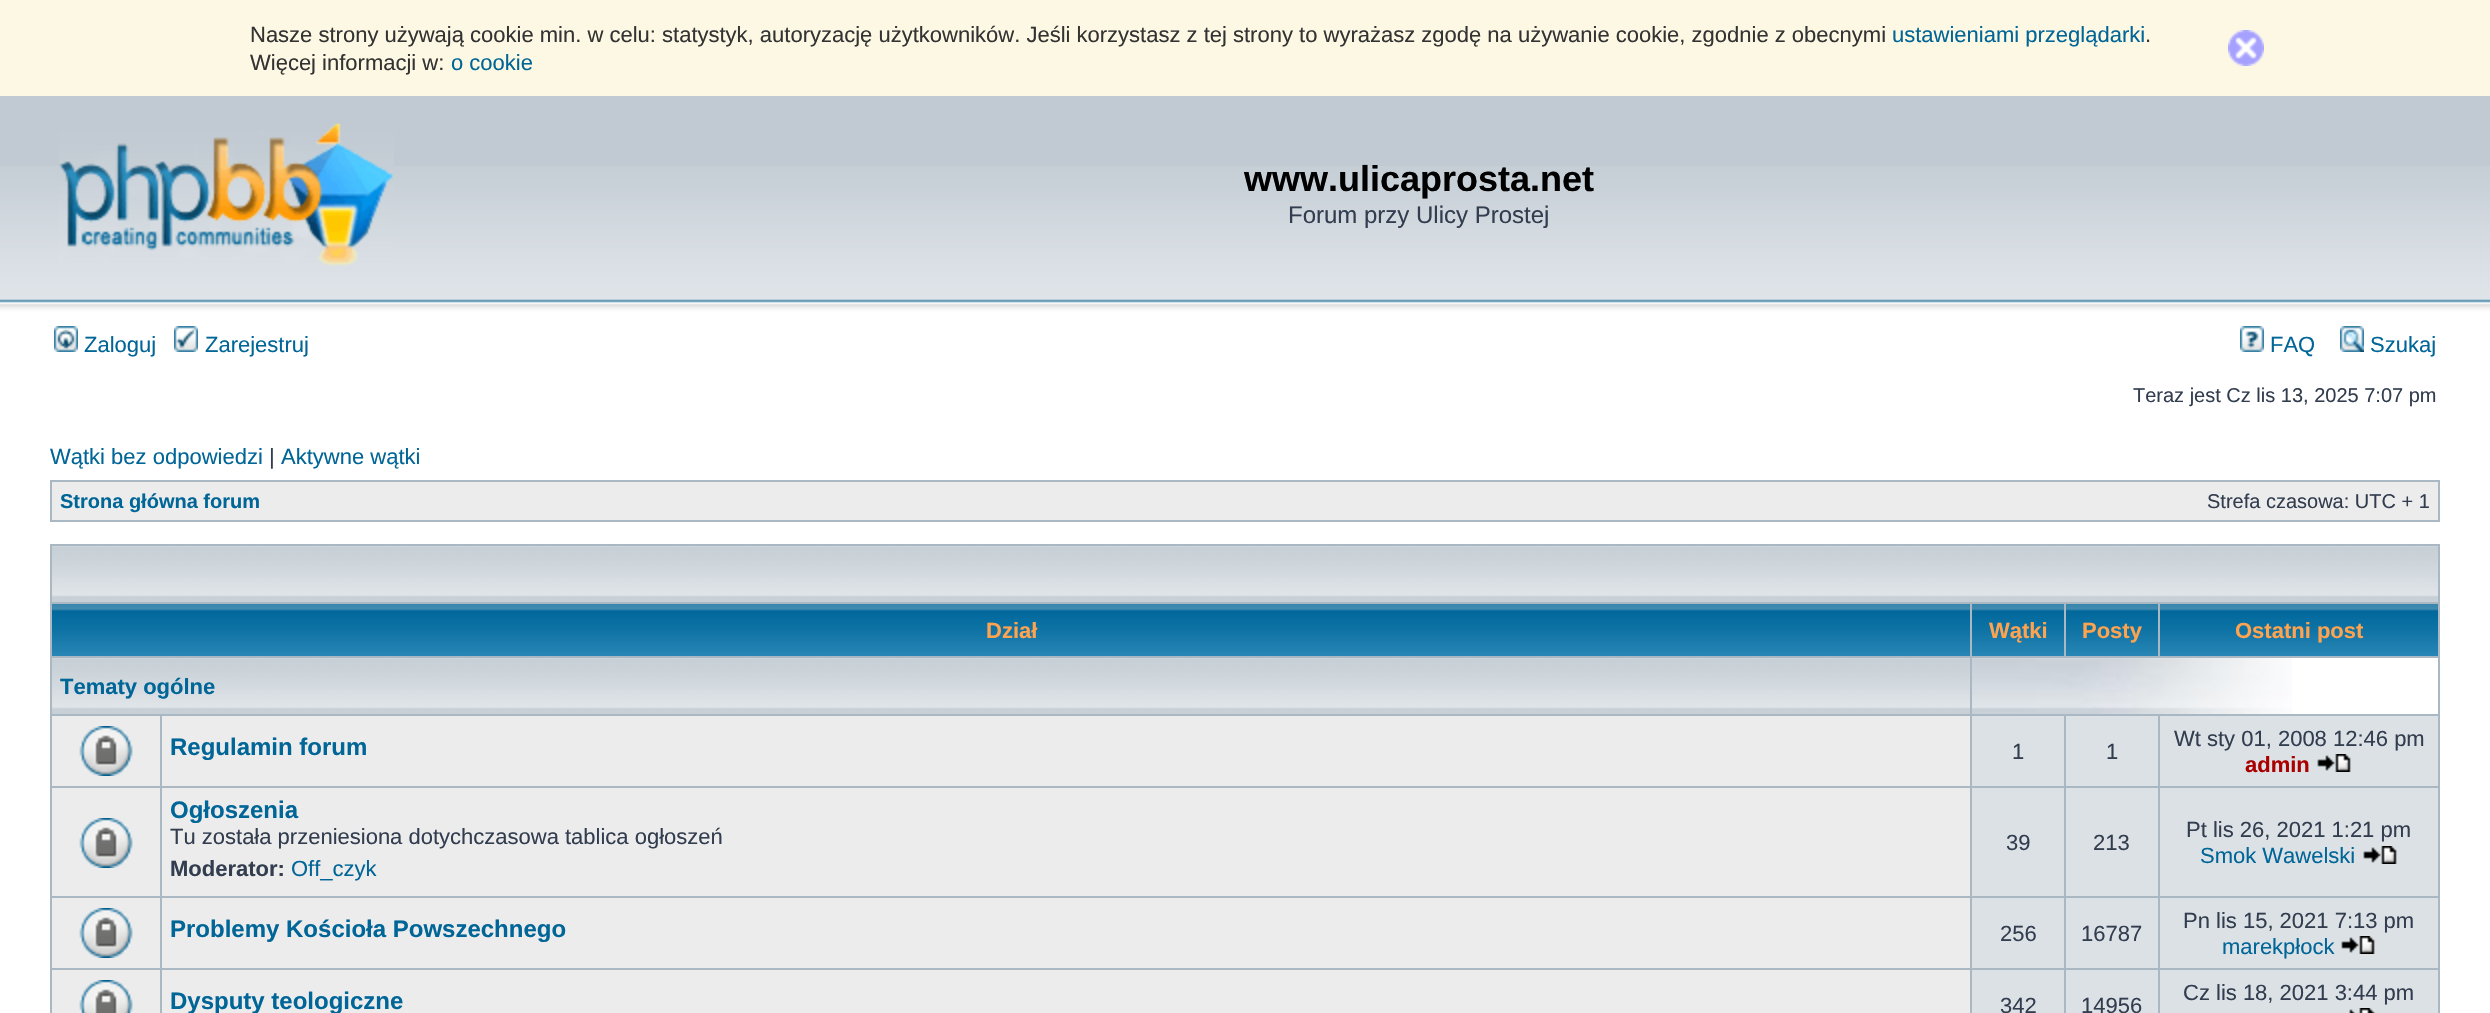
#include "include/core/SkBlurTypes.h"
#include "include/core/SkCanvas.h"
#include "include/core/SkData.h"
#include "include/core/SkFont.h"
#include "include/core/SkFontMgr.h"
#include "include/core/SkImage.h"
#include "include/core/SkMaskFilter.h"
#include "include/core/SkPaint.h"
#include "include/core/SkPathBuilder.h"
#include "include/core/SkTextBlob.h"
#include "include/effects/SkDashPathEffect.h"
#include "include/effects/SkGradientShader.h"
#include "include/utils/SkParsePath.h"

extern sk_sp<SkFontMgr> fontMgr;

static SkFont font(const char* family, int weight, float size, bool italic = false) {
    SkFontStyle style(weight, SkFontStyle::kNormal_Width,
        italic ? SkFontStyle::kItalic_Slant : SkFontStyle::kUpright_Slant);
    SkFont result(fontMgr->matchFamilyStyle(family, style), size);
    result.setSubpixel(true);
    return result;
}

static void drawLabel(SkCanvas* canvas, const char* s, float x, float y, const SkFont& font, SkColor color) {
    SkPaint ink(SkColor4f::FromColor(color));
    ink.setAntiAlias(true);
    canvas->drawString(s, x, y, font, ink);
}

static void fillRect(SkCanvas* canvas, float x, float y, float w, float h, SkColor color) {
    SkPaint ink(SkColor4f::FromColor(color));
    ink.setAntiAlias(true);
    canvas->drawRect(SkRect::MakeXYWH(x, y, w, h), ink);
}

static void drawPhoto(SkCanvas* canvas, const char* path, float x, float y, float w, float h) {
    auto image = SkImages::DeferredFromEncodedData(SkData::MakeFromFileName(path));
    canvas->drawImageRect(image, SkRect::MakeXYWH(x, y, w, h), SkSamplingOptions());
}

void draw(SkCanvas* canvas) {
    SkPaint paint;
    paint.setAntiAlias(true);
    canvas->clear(0xFFFFFFFF);
    fillRect(canvas, 0, 0, 2490, 96, 0xFFFCF8E3);
    SkFont font1 = font("Liberation Sans", 400, 22);
    drawLabel(canvas, "Nasze strony używają cookie min. w celu: statystyk, autoryzację użytkowników. Jeśli korzystasz z tej strony to wyrażasz zgodę na używanie cookie, zgodnie z obecnymi", 250, 42, font1, 0xFF333333);
    drawLabel(canvas, "ustawieniami przeglądarki", 1892, 42, font1, 0xFF006597);
    drawLabel(canvas, ".", 2145, 42, font1, 0xFF333333);
    drawLabel(canvas, "Więcej informacji w:", 250, 70, font1, 0xFF333333);
    drawLabel(canvas, "o cookie", 451, 70, font1, 0xFF006597);
    drawPhoto(canvas, "assets/img1.png", 2228, 30, 36, 36);
    fillRect(canvas, 0, 96, 2490, 70, 0xFFC1CAD2);
    drawPhoto(canvas, "assets/img2.png", 0, 166, 2490, 156);
    drawPhoto(canvas, "assets/img3.png", 59, 123, 335, 143);
    SkFont font2 = font("Liberation Sans", 700, 36);
    drawLabel(canvas, "www.ulicaprosta.net", 1244, 191, font2, 0xFF000000);
    SkFont font3 = font("Liberation Sans", 400, 24);
    drawLabel(canvas, "Forum przy Ulicy Prostej", 1288, 223, font3, 0xFF323D4F);
    drawPhoto(canvas, "assets/img4.png", 54, 326, 24, 26);
    drawLabel(canvas, "Zaloguj", 84, 352, font1, 0xFF006597);
    drawPhoto(canvas, "assets/img5.png", 174, 326, 24, 26);
    drawLabel(canvas, "Zarejestruj", 205, 352, font1, 0xFF006597);
    drawPhoto(canvas, "assets/img6.png", 2240, 326, 24, 26);
    drawLabel(canvas, "FAQ", 2270, 352, font1, 0xFF006597);
    drawPhoto(canvas, "assets/img7.png", 2340, 326, 24, 26);
    drawLabel(canvas, "Szukaj", 2370, 352, font1, 0xFF006597);
    SkFont font4 = font("Liberation Sans", 400, 20);
    drawLabel(canvas, "Teraz jest Cz lis 13, 2025 7:07 pm", 2133, 402, font4, 0xFF323D4F);
    drawLabel(canvas, "Wątki bez odpowiedzi", 50, 464, font1, 0xFF006597);
    drawLabel(canvas, "|", 269, 464, font1, 0xFF323D4F);
    drawLabel(canvas, "Aktywne wątki", 281, 464, font1, 0xFF006597);
    fillRect(canvas, 50, 480, 2390, 42, 0xFFA9B8C2);
    fillRect(canvas, 52, 482, 2386, 38, 0xFFECECEC);
    SkFont font5 = font("Liberation Sans", 700, 20);
    drawLabel(canvas, "Strona główna forum", 60, 508, font5, 0xFF006597);
    drawLabel(canvas, "Strefa czasowa: UTC + 1", 2207, 508, font4, 0xFF323D4F);
    fillRect(canvas, 50, 544, 2390, 469, 0xFFA9B8C2);
    fillRect(canvas, 52, 597, 2386, 5, 0xFFC7D0D7);
    drawPhoto(canvas, "assets/img8.png", 52, 546, 2386, 51);
    drawPhoto(canvas, "assets/img9.png", 52, 604, 1918, 52);
    SkFont font6 = font("Liberation Sans", 700, 22);
    drawLabel(canvas, "Dział", 986, 638, font6, 0xFFFFA34F);
    drawPhoto(canvas, "assets/img10.png", 1972, 604, 92, 52);
    drawLabel(canvas, "Wątki", 1989, 638, font6, 0xFFFFA34F);
    drawPhoto(canvas, "assets/img10.png", 2066, 604, 92, 52);
    drawLabel(canvas, "Posty", 2082, 638, font6, 0xFFFFA34F);
    drawPhoto(canvas, "assets/img11.png", 2160, 604, 278, 52);
    drawLabel(canvas, "Ostatni post", 2235, 638, font6, 0xFFFFA34F);
    fillRect(canvas, 52, 709, 1918, 5, 0xFFC7D0D7);
    drawPhoto(canvas, "assets/img12.png", 52, 658, 1918, 51);
    drawLabel(canvas, "Tematy ogólne", 60, 694, font6, 0xFF006597);
    fillRect(canvas, 2292, 658, 146, 56, 0xFFFFFFFF);
    drawPhoto(canvas, "assets/img13.png", 1972, 658, 320, 56);
    fillRect(canvas, 52, 716, 108, 70, 0xFFECECEC);
    drawPhoto(canvas, "assets/img14.png", 79, 726, 54, 50);
    fillRect(canvas, 162, 716, 1808, 70, 0xFFECECEC);
    SkFont font7 = font("Liberation Sans", 700, 24);
    drawLabel(canvas, "Regulamin forum", 170, 755, font7, 0xFF006597);
    fillRect(canvas, 1972, 716, 92, 70, 0xFFDCE1E5);
    drawLabel(canvas, "1", 2012, 759, font1, 0xFF323D4F);
    fillRect(canvas, 2066, 716, 92, 70, 0xFFDCE1E5);
    drawLabel(canvas, "1", 2106, 759, font1, 0xFF323D4F);
    fillRect(canvas, 2160, 716, 278, 70, 0xFFDCE1E5);
    drawLabel(canvas, "Wt sty 01, 2008 12:46 pm", 2174, 746, font1, 0xFF323D4F);
    drawLabel(canvas, "admin", 2245, 772, font6, 0xFFAA0000);
    drawPhoto(canvas, "assets/img15.png", 2317, 754, 34, 18);
    fillRect(canvas, 52, 788, 108, 108, 0xFFECECEC);
    drawPhoto(canvas, "assets/img14.png", 79, 818, 54, 50);
    fillRect(canvas, 162, 788, 1808, 108, 0xFFECECEC);
    drawLabel(canvas, "Ogłoszenia", 170, 818, font7, 0xFF006597);
    drawLabel(canvas, "Tu została przeniesiona dotychczasowa tablica ogłoszeń", 170, 844, font1, 0xFF323D4F);
    drawLabel(canvas, "Moderator:", 170, 876, font6, 0xFF323D4F);
    drawLabel(canvas, "Off_czyk", 291, 876, font1, 0xFF006597);
    fillRect(canvas, 1972, 788, 92, 108, 0xFFDCE1E5);
    drawLabel(canvas, "39", 2006, 850, font1, 0xFF323D4F);
    fillRect(canvas, 2066, 788, 92, 108, 0xFFDCE1E5);
    drawLabel(canvas, "213", 2093, 850, font1, 0xFF323D4F);
    fillRect(canvas, 2160, 788, 278, 108, 0xFFDCE1E5);
    drawLabel(canvas, "Pt lis 26, 2021 1:21 pm", 2186, 837, font1, 0xFF323D4F);
    drawLabel(canvas, "Smok Wawelski", 2200, 863, font1, 0xFF006597);
    drawPhoto(canvas, "assets/img15.png", 2363, 846, 34, 18);
    fillRect(canvas, 52, 898, 108, 70, 0xFFECECEC);
    drawPhoto(canvas, "assets/img14.png", 79, 908, 54, 50);
    fillRect(canvas, 162, 898, 1808, 70, 0xFFECECEC);
    drawLabel(canvas, "Problemy Kościoła Powszechnego", 170, 937, font7, 0xFF006597);
    fillRect(canvas, 1972, 898, 92, 70, 0xFFDCE1E5);
    drawLabel(canvas, "256", 2000, 941, font1, 0xFF323D4F);
    fillRect(canvas, 2066, 898, 92, 70, 0xFFDCE1E5);
    drawLabel(canvas, "16787", 2081, 941, font1, 0xFF323D4F);
    fillRect(canvas, 2160, 898, 278, 70, 0xFFDCE1E5);
    drawLabel(canvas, "Pn lis 15, 2021 7:13 pm", 2183, 928, font1, 0xFF323D4F);
    drawLabel(canvas, "marekpłock", 2222, 954, font1, 0xFF006597);
    drawPhoto(canvas, "assets/img15.png", 2341, 936, 34, 18);
    fillRect(canvas, 52, 970, 108, 43, 0xFFECECEC);
    drawPhoto(canvas, "assets/img16.png", 79, 980, 54, 33);
    fillRect(canvas, 162, 970, 1808, 43, 0xFFECECEC);
    drawLabel(canvas, "Dysputy teologiczne", 170, 1009, font7, 0xFF006597);
    fillRect(canvas, 1972, 970, 92, 43, 0xFFDCE1E5);
    drawLabel(canvas, "342", 2000, 1013, font1, 0xFF323D4F);
    fillRect(canvas, 2066, 970, 92, 43, 0xFFDCE1E5);
    drawLabel(canvas, "14956", 2081, 1013, font1, 0xFF323D4F);
    fillRect(canvas, 2160, 970, 278, 43, 0xFFDCE1E5);
    drawLabel(canvas, "Cz lis 18, 2021 3:44 pm", 2183, 1000, font1, 0xFF323D4F);
    drawPhoto(canvas, "assets/img17.png", 2349, 1008, 26, 5);
}
